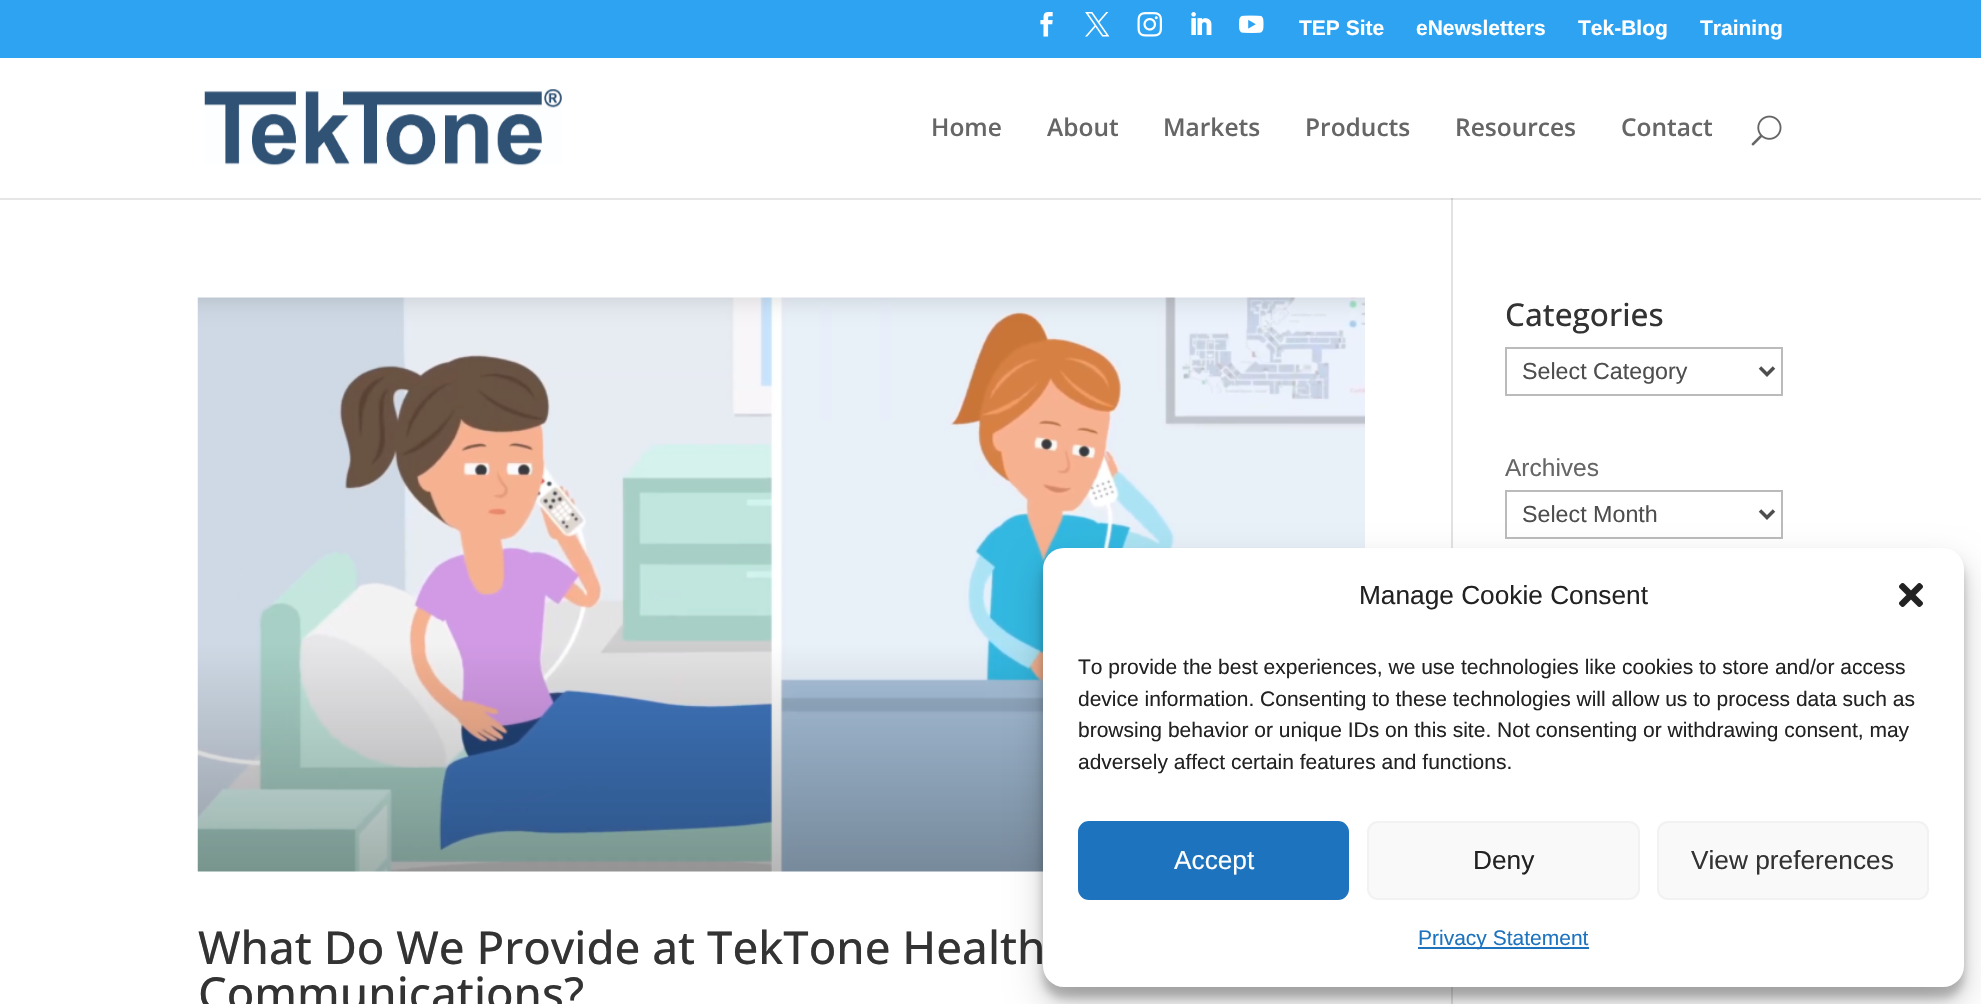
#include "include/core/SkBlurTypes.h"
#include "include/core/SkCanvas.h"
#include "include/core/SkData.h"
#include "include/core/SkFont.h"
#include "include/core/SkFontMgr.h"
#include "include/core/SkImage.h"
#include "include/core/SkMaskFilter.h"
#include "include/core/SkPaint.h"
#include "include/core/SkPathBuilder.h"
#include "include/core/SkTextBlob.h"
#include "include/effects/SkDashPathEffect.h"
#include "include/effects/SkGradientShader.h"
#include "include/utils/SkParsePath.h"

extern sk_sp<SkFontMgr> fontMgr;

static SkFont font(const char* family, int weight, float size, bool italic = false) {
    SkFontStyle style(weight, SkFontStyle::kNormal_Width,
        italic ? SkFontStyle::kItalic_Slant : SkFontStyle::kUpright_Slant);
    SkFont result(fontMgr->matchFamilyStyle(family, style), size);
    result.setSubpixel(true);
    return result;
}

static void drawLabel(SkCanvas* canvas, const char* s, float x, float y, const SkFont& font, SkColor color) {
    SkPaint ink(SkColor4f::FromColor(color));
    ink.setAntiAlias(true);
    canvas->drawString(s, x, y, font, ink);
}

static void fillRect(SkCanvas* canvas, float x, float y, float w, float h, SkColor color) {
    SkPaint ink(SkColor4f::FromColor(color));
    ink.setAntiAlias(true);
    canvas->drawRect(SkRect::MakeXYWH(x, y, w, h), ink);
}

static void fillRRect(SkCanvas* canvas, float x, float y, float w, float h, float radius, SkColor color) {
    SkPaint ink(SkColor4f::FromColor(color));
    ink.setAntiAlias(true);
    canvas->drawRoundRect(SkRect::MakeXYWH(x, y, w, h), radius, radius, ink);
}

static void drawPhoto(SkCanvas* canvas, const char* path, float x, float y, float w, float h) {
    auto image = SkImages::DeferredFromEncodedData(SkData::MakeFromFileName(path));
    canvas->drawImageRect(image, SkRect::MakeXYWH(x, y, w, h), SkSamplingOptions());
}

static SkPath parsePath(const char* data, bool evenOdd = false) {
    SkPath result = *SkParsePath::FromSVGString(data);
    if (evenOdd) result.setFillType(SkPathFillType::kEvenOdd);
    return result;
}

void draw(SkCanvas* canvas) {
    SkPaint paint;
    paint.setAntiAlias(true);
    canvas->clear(0xFFFFFFFF);
    fillRect(canvas, 0, 198, 1981, 2, 0xFFE6E6E6);
    fillRect(canvas, 0, 0, 1981, 58, 0xFF2EA3F2);
    drawPhoto(canvas, "assets/img1.png", 1040, 12, 13, 25);
    drawPhoto(canvas, "assets/img2.png", 1085, 12, 25, 25);
    drawPhoto(canvas, "assets/img3.png", 1137, 12, 25, 25);
    drawPhoto(canvas, "assets/img4.png", 1191, 12, 21, 23);
    drawPhoto(canvas, "assets/img5.png", 1239, 15, 25, 18);
    SkFont font1 = font("Liberation Sans", 700, 21);
    drawLabel(canvas, "TEP Site", 1299, 35, font1, 0xFFFFFFFF);
    drawLabel(canvas, "eNewsletters", 1416, 35, font1, 0xFFFFFFFF);
    drawLabel(canvas, "Tek-Blog", 1578, 35, font1, 0xFFFFFFFF);
    drawLabel(canvas, "Training", 1700, 35, font1, 0xFFFFFFFF);
    fillRect(canvas, 1451, 196, 2, 808, 0xFFE2E2E2);
    fillRect(canvas, 1451, 196, 2, 2, 0xFFFFFFFF);
    drawPhoto(canvas, "assets/img6.png", 204, 89, 358, 77);
    SkFont font2 = font("Open Sans", 600, 24.5f);
    drawLabel(canvas, "Home", 931, 136, font2, 0xFF666666);
    drawLabel(canvas, "About", 1047, 136, font2, 0xFF666666);
    drawLabel(canvas, "Markets", 1163, 136, font2, 0xFF666666);
    drawLabel(canvas, "Products", 1305, 136, font2, 0xFF666666);
    drawLabel(canvas, "Resources", 1455, 136, font2, 0xFF666666);
    drawLabel(canvas, "Contact", 1621, 136, font2, 0xFF666666);
    drawPhoto(canvas, "assets/img7.png", 1751, 115, 31, 31);
    fillRect(canvas, 1451, 198, 2, 2, 0xFFCBCBCB);
    SkFont font3 = font("Open Sans", 500, 31.5f);
    drawLabel(canvas, "Categories", 1505, 326, font3, 0xFF333333);
    paint.setStroke(true);
    paint.setStrokeWidth(2);
    paint.setColor(0xFFBBBBBB);
    canvas->drawRect(SkRect::MakeXYWH(1506, 348, 276, 47), paint);
    paint.setStrokeWidth(3.5f);
    paint.setColor(0xFF4E4E4E);
    canvas->drawPath(parsePath("M1760 367.5L1767 374.5L1774 367.5"), paint);
    SkFont font4 = font("Liberation Sans", 400, 23.25f);
    drawLabel(canvas, "Select Category", 1522, 379, font4, 0xFF4E4E4E);
    SkFont font5 = font("Liberation Sans", 400, 24.5f);
    drawLabel(canvas, "Archives", 1505, 476, font5, 0xFF666666);
    paint.setStrokeWidth(2);
    paint.setColor(0xFFBBBBBB);
    canvas->drawRect(SkRect::MakeXYWH(1506, 491, 276, 47), paint);
    paint.setStrokeWidth(3.5f);
    paint.setColor(0xFF4E4E4E);
    canvas->drawPath(parsePath("M1760 510.5L1767 517.5L1774 510.5"), paint);
    drawLabel(canvas, "Select Month", 1522, 522, font4, 0xFF4E4E4E);
    drawPhoto(canvas, "assets/img8.png", 197, 297, 1168, 575);
    SkFont font6 = font("Open Sans", 500, 45.5f);
    drawLabel(canvas, "What Do We Provide at TekTone Health", 198, 964, font6, 0xFF333333);
    drawLabel(canvas, "Communications?", 198, 1010, font6, 0xFF333333);
    paint.setStroke(false);
    paint.setColor(0x3B000000);
    paint.setMaskFilter(SkMaskFilter::MakeBlur(kNormal_SkBlurStyle, 5));
    canvas->drawRoundRect(SkRect::MakeXYWH(1043, 558, 921, 440), 21, 21, paint);
    paint.setMaskFilter(nullptr);
    paint.setColor(0x30000000);
    paint.setMaskFilter(SkMaskFilter::MakeBlur(kNormal_SkBlurStyle, 17.5f));
    canvas->drawRoundRect(SkRect::MakeXYWH(1043, 565, 921, 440), 21, 21, paint);
    paint.setMaskFilter(nullptr);
    fillRRect(canvas, 1043, 548, 921, 439, 21, 0xFFFFFFFF);
    SkFont font7 = font("Liberation Sans", 400, 26.25f);
    drawLabel(canvas, "Manage Cookie Consent", 1359, 604, font7, 0xFF222222);
    drawPhoto(canvas, "assets/img9.png", 1899, 583, 24, 24);
    SkFont font8 = font("Liberation Sans", 400, 21);
    drawLabel(canvas, "To provide the best experiences, we use technologies like cookies to store and/or access", 1078, 674, font8, 0xFF222222);
    drawLabel(canvas, "device information. Consenting to these technologies will allow us to process data such as", 1078, 706, font8, 0xFF222222);
    drawLabel(canvas, "browsing behavior or unique IDs on this site. Not consenting or withdrawing consent, may", 1078, 737, font8, 0xFF222222);
    drawLabel(canvas, "adversely affect certain features and functions.", 1078, 769, font8, 0xFF222222);
    paint.setColor(0xFF1E73BE);
    canvas->drawRoundRect(SkRect::MakeXYWH(1079, 822, 269, 77), 10, 10, paint);
    paint.setStroke(true);
    paint.setStrokeWidth(2);
    canvas->drawRoundRect(SkRect::MakeXYWH(1079, 822, 269, 77), 10, 10, paint);
    drawLabel(canvas, "Accept", 1174, 869, font7, 0xFFFFFFFF);
    paint.setStroke(false);
    paint.setColor(0xFFF9F9F9);
    canvas->drawRoundRect(SkRect::MakeXYWH(1368, 822, 271, 77), 10, 10, paint);
    paint.setStroke(true);
    paint.setColor(0xFFF2F2F2);
    canvas->drawRoundRect(SkRect::MakeXYWH(1368, 822, 271, 77), 10, 10, paint);
    drawLabel(canvas, "Deny", 1473, 869, font7, 0xFF222222);
    paint.setStroke(false);
    paint.setColor(0xFFF9F9F9);
    canvas->drawRoundRect(SkRect::MakeXYWH(1658, 822, 270, 77), 10, 10, paint);
    paint.setStroke(true);
    paint.setColor(0xFFF2F2F2);
    canvas->drawRoundRect(SkRect::MakeXYWH(1658, 822, 270, 77), 10, 10, paint);
    drawLabel(canvas, "View preferences", 1691, 869, font7, 0xFF333333);
    fillRect(canvas, 1418, 947, 171, 2, 0xFF1E73BE);
    drawLabel(canvas, "Privacy Statement", 1418, 945, font8, 0xFF1E73BE);
}
